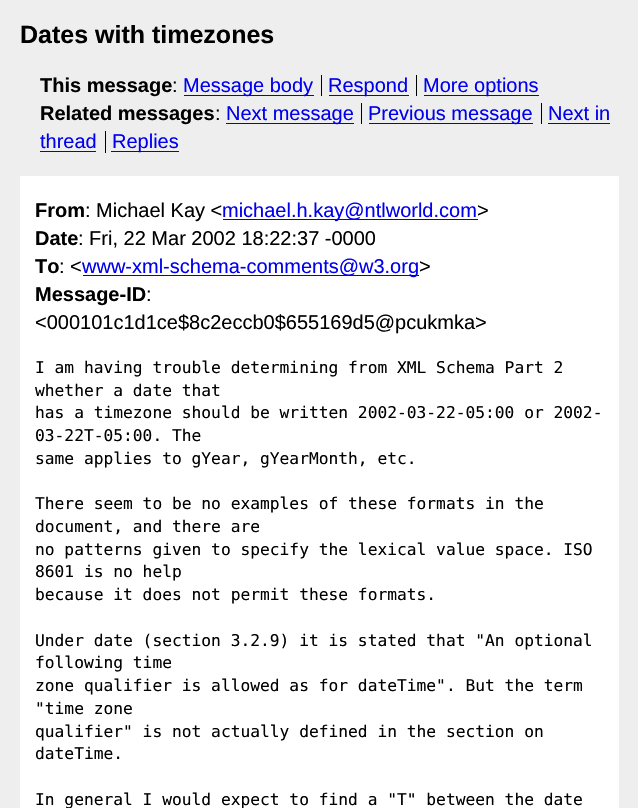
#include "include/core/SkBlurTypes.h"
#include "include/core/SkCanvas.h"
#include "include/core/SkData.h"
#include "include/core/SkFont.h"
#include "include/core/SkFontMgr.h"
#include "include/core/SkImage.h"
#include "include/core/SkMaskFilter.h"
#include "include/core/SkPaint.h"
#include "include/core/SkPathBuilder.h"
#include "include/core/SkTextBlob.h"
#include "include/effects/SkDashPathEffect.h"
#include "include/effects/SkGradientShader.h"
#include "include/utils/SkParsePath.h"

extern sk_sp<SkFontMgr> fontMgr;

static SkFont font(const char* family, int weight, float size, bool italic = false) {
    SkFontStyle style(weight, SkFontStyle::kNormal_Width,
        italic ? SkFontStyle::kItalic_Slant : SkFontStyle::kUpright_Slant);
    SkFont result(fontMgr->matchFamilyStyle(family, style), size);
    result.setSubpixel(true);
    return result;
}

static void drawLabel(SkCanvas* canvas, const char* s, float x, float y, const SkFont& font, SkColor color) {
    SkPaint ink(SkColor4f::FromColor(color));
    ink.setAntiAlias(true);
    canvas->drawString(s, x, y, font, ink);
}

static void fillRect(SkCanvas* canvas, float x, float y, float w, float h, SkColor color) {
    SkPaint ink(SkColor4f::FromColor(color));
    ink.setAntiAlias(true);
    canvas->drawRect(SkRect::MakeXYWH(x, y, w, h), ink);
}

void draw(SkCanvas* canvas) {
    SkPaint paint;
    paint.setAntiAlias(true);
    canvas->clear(0xFFEEEEEE);
    SkFont font1 = font("Liberation Sans", 700, 25);
    drawLabel(canvas, "Dates with timezones", 20, 43, font1, 0xFF000000);
    SkFont font2 = font("Liberation Sans", 700, 20);
    drawLabel(canvas, "This message", 40, 92, font2, 0xFF000000);
    SkFont font3 = font("Liberation Sans", 400, 20);
    drawLabel(canvas, ":", 172, 92, font3, 0xFF000000);
    fillRect(canvas, 184, 95, 130, 1, 0xFF0000EE);
    drawLabel(canvas, "Message body", 183, 92, font3, 0xFF0000EE);
    fillRect(canvas, 321, 75, 1, 21, 0xFF000000);
    fillRect(canvas, 329, 95, 80, 1, 0xFF0000EE);
    drawLabel(canvas, "Respond", 328, 92, font3, 0xFF0000EE);
    fillRect(canvas, 424, 95, 115, 1, 0xFF0000EE);
    drawLabel(canvas, "More options", 423, 92, font3, 0xFF0000EE);
    fillRect(canvas, 416, 75, 1, 21, 0xFF000000);
    drawLabel(canvas, "Related messages", 40, 120, font2, 0xFF000000);
    drawLabel(canvas, ":", 215, 120, font3, 0xFF000000);
    fillRect(canvas, 226, 123, 128, 1, 0xFF0000EE);
    drawLabel(canvas, "Next message", 226, 120, font3, 0xFF0000EE);
    fillRect(canvas, 369, 123, 164, 1, 0xFF0000EE);
    drawLabel(canvas, "Previous message", 368, 120, font3, 0xFF0000EE);
    fillRect(canvas, 361, 103, 1, 21, 0xFF000000);
    drawLabel(canvas, "Next in", 548, 120, font3, 0xFF0000EE);
    fillRect(canvas, 541, 103, 1, 21, 0xFF000000);
    fillRect(canvas, 548, 123, 62, 1, 0xFF0000EE);
    drawLabel(canvas, "thread", 40, 148, font3, 0xFF0000EE);
    fillRect(canvas, 40, 151, 56, 1, 0xFF0000EE);
    fillRect(canvas, 111, 151, 68, 1, 0xFF0000EE);
    drawLabel(canvas, "Replies", 112, 148, font3, 0xFF0000EE);
    fillRect(canvas, 105, 131, 1, 22, 0xFF000000);
    fillRect(canvas, 20, 176, 599, 632, 0xFFFFFFFF);
    drawLabel(canvas, "From", 35, 217, font2, 0xFF000000);
    drawLabel(canvas, ": Michael Kay <", 85, 217, font3, 0xFF000000);
    fillRect(canvas, 223, 219, 255, 1, 0xFF0000EE);
    drawLabel(canvas, "michael.h.kay@ntlworld.com", 222, 217, font3, 0xFF0000EE);
    drawLabel(canvas, ">", 477, 217, font3, 0xFF000000);
    drawLabel(canvas, "Date", 35, 245, font2, 0xFF000000);
    drawLabel(canvas, ": Fri, 22 Mar 2002 18:22:37 -0000", 78, 245, font3, 0xFF000000);
    drawLabel(canvas, "To", 35, 273, font2, 0xFF000000);
    drawLabel(canvas, ": <", 59, 273, font3, 0xFF000000);
    fillRect(canvas, 83, 275, 336, 1, 0xFF0000EE);
    drawLabel(canvas, "www-xml-schema-comments@w3.org", 82, 273, font3, 0xFF0000EE);
    drawLabel(canvas, ">", 419, 273, font3, 0xFF000000);
    drawLabel(canvas, "Message-ID", 35, 301, font2, 0xFF000000);
    drawLabel(canvas, ":", 146, 301, font3, 0xFF000000);
    drawLabel(canvas, "<000101c1d1ce$8c2eccb0$655169d5@pcukmka>", 35, 329, font3, 0xFF000000);
    SkFont font4 = font("DejaVu Sans Mono", 400, 16.25f);
    drawLabel(canvas, "I am having trouble determining from XML Schema Part 2", 35, 373, font4, 0xFF000000);
    drawLabel(canvas, "whether a date that", 35, 396, font4, 0xFF000000);
    drawLabel(canvas, "has a timezone should be written 2002-03-22-05:00 or 2002-", 35, 418, font4, 0xFF000000);
    drawLabel(canvas, "03-22T-05:00. The", 35, 441, font4, 0xFF000000);
    drawLabel(canvas, "same applies to gYear, gYearMonth, etc.", 35, 464, font4, 0xFF000000);
    drawLabel(canvas, "There seem to be no examples of these formats in the", 35, 509, font4, 0xFF000000);
    drawLabel(canvas, "document, and there are", 35, 532, font4, 0xFF000000);
    drawLabel(canvas, "no patterns given to specify the lexical value space. ISO", 35, 555, font4, 0xFF000000);
    drawLabel(canvas, "8601 is no help", 35, 577, font4, 0xFF000000);
    drawLabel(canvas, "because it does not permit these formats.", 35, 600, font4, 0xFF000000);
    drawLabel(canvas, "Under date (section 3.2.9) it is stated that \"An optional", 35, 646, font4, 0xFF000000);
    drawLabel(canvas, "following time", 35, 668, font4, 0xFF000000);
    drawLabel(canvas, "zone qualifier is allowed as for dateTime\". But the term", 35, 691, font4, 0xFF000000);
    drawLabel(canvas, "\"time zone", 35, 714, font4, 0xFF000000);
    drawLabel(canvas, "qualifier\" is not actually defined in the section on", 35, 737, font4, 0xFF000000);
    drawLabel(canvas, "dateTime.", 35, 759, font4, 0xFF000000);
    drawLabel(canvas, "In general I would expect to find a \"T\" between the date", 35, 805, font4, 0xFF000000);
}
